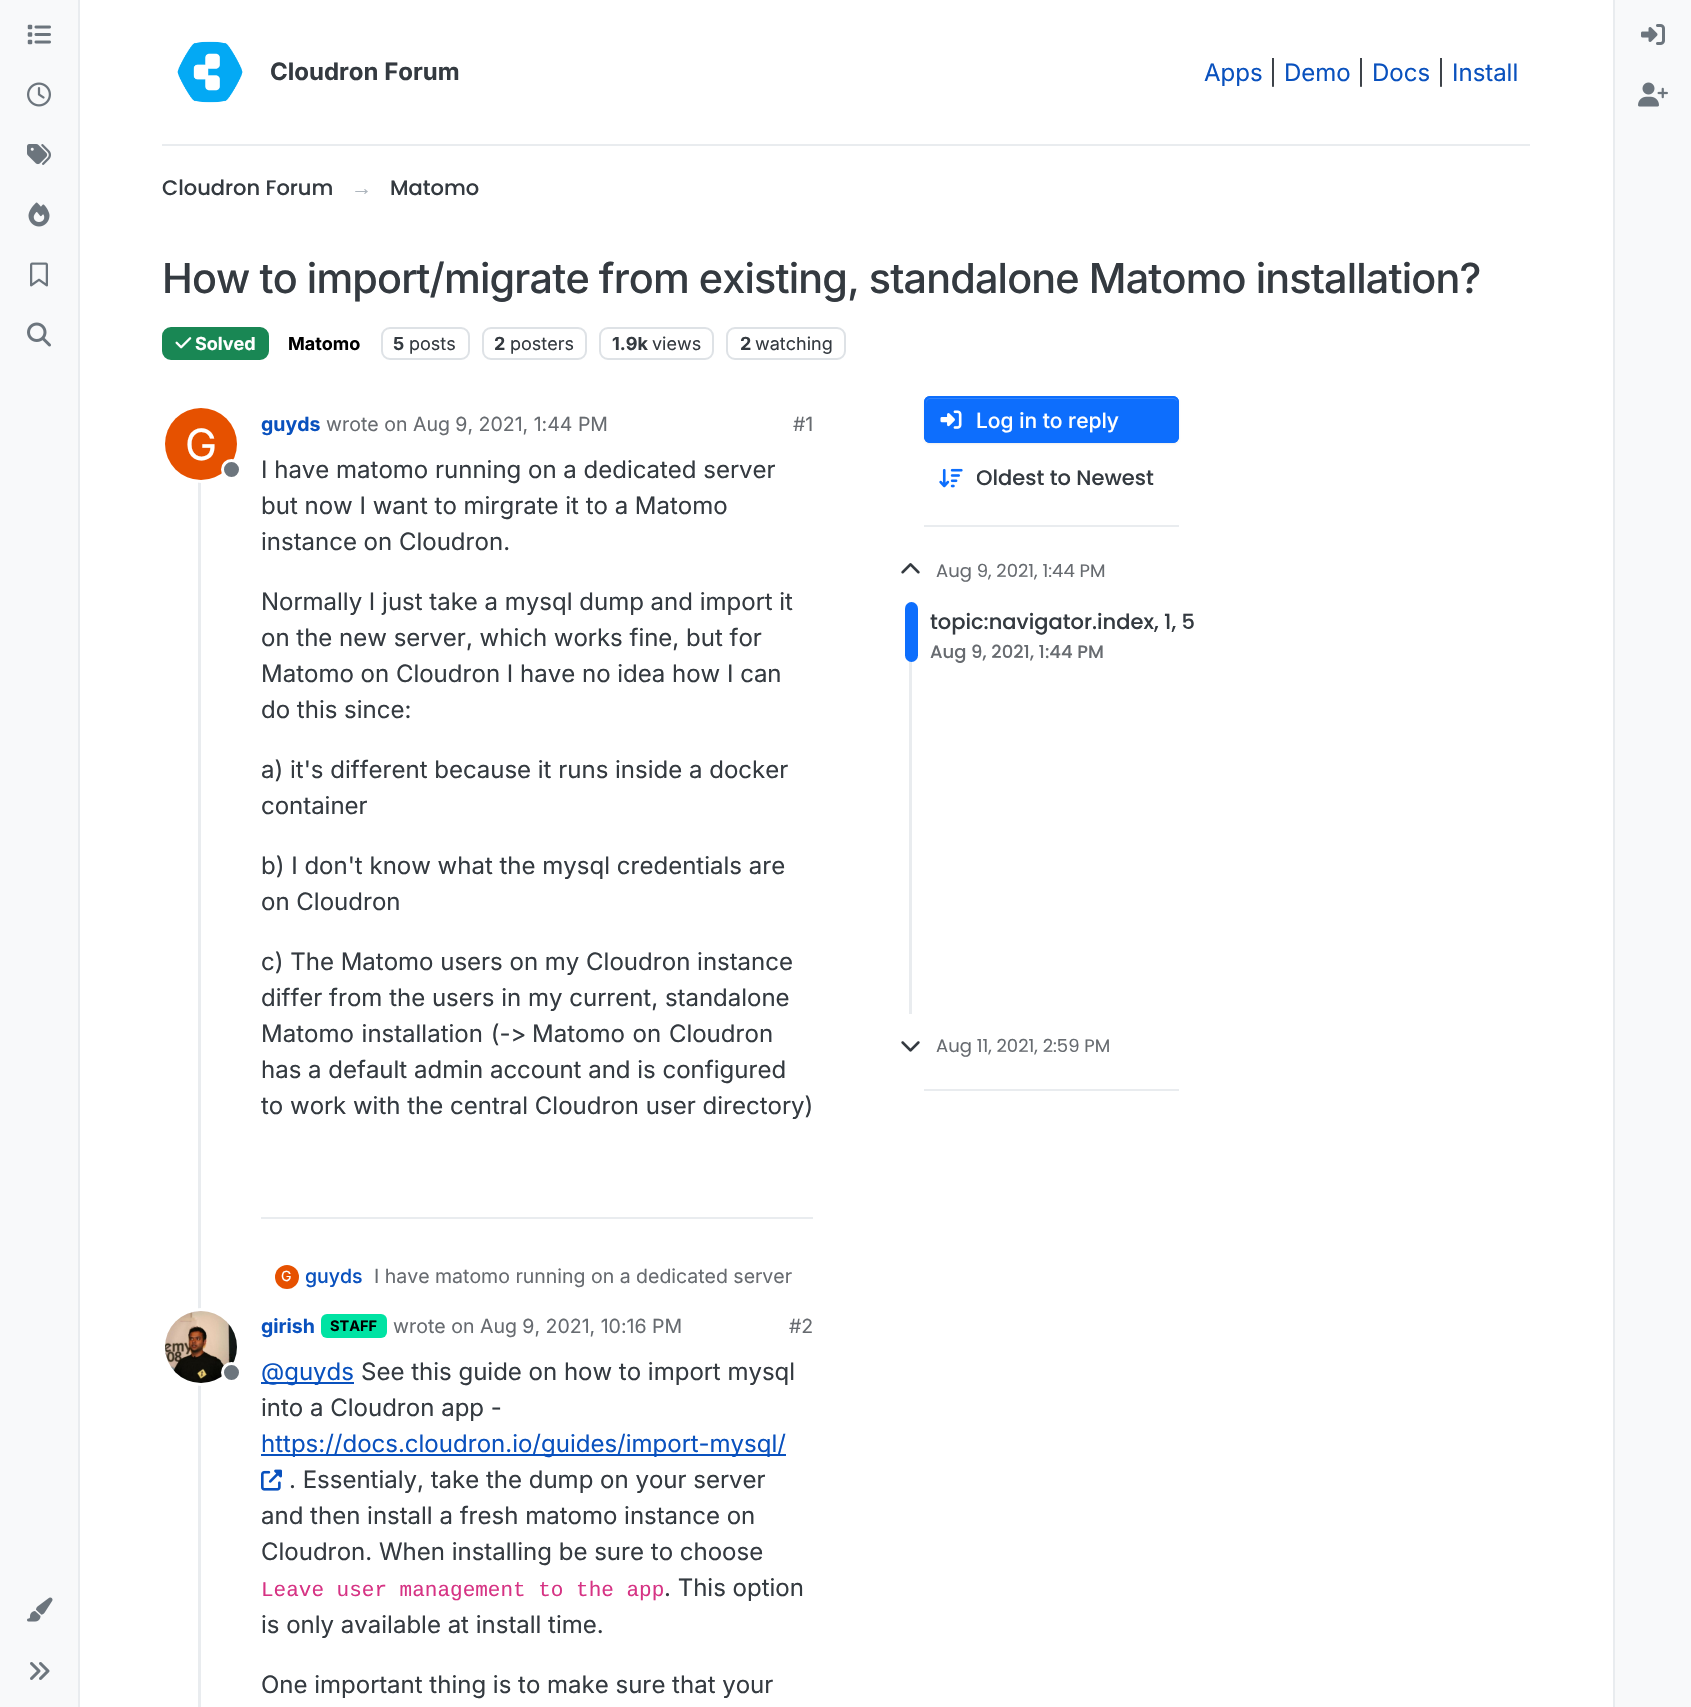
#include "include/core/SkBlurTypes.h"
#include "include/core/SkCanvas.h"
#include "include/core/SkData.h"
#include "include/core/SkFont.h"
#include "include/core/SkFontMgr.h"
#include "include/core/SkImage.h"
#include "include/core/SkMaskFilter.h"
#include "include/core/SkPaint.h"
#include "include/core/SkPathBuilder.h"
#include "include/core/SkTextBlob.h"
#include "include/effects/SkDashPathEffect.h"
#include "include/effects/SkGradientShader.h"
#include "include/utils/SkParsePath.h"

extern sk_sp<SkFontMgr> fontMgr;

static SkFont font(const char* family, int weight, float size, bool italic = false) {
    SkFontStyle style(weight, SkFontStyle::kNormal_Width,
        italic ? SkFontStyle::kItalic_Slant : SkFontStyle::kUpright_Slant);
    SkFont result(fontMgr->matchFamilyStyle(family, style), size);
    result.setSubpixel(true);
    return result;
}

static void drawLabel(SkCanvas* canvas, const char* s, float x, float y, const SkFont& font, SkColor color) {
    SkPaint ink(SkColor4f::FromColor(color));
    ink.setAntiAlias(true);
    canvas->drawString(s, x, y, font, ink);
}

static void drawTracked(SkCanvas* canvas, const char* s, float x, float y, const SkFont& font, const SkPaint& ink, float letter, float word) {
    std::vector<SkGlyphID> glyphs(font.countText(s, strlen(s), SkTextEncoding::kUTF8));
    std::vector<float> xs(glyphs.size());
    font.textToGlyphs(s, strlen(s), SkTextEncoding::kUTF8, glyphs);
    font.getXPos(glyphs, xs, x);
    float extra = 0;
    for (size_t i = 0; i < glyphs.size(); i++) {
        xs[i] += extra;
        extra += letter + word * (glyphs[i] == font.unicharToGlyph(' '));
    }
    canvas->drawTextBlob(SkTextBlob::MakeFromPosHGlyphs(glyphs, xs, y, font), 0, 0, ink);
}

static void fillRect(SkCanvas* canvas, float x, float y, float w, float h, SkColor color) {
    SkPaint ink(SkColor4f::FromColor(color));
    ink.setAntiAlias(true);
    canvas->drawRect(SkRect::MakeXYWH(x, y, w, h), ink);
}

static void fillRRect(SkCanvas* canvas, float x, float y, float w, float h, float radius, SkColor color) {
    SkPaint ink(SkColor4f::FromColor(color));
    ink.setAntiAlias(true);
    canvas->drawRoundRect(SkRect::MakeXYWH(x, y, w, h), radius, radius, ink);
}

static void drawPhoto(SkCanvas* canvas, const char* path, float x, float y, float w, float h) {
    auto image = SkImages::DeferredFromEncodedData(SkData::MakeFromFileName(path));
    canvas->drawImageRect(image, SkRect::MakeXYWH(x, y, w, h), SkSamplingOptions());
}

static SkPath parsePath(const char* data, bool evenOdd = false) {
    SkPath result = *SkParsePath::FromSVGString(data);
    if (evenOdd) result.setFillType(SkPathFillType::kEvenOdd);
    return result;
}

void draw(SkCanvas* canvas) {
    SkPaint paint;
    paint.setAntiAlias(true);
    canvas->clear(0xFFFFFFFF);
    fillRect(canvas, 0, 0, 78, 1707, 0xFFF8F9FA);
    fillRect(canvas, 78, 0, 2, 1707, 0xFFE9ECEF);
    drawPhoto(canvas, "assets/img1.png", 27, 24, 24, 21);
    drawPhoto(canvas, "assets/img2.png", 27, 82, 24, 25);
    drawPhoto(canvas, "assets/img3.png", 27, 144, 24, 21);
    drawPhoto(canvas, "assets/img4.png", 28, 202, 22, 25);
    drawPhoto(canvas, "assets/img5.png", 30, 262, 18, 25);
    drawPhoto(canvas, "assets/img6.png", 27, 322, 24, 25);
    drawPhoto(canvas, "assets/img7.png", 27, 1597, 26, 25);
    drawPhoto(canvas, "assets/img8.png", 30, 1662, 20, 18);
    fillRect(canvas, 162, 144, 1368, 2, 0xFFE9ECEF);
    drawPhoto(canvas, "assets/img9.png", 177, 41, 66, 62);
    SkFont font1 = font("Inter", 700, 24);
    drawLabel(canvas, "Cloudron Forum", 270, 80, font1, 0xFF343A40);
    SkFont font2 = font("Inter", 400, 24);
    drawLabel(canvas, "Apps", 1204, 81, font2, 0xFF0951BE);
    drawLabel(canvas, "|", 1269, 81, font2, 0xFF343A40);
    drawLabel(canvas, "Demo", 1284, 81, font2, 0xFF0951BE);
    drawLabel(canvas, "|", 1357, 81, font2, 0xFF343A40);
    drawLabel(canvas, "Docs", 1372, 81, font2, 0xFF0951BE);
    drawLabel(canvas, "|", 1437, 81, font2, 0xFF343A40);
    drawLabel(canvas, "Install", 1452, 81, font2, 0xFF0951BE);
    SkFont font3 = font("Poppins", 500, 21);
    drawLabel(canvas, "Cloudron Forum", 162, 195, font3, 0xFF343A40);
    SkFont font4 = font("Liberation Sans", 400, 21);
    drawLabel(canvas, "→", 351, 195, font4, 0xFFADB5BD);
    drawLabel(canvas, "Matomo", 390, 195, font3, 0xFF343A40);
    SkFont font5 = font("Inter", 500, 41.35f);
    paint.setColor(0xFF343A40);
    drawTracked(canvas, "How to import/migrate from existing, standalone Matomo installation?", 162, 293, font5, paint, -0.83f, -0.25f);
    paint.setColor(0xFF198754);
    canvas->drawRoundRect(SkRect::MakeXYWH(163, 328, 105, 31), 8, 8, paint);
    paint.setStroke(true);
    paint.setStrokeWidth(2);
    canvas->drawRoundRect(SkRect::MakeXYWH(163, 328, 105, 31), 8, 8, paint);
    drawPhoto(canvas, "assets/img10.png", 175, 337, 17, 12);
    SkFont font6 = font("Inter", 700, 18);
    drawLabel(canvas, "Solved", 195, 350, font6, 0xFFFFFFFF);
    drawLabel(canvas, "Matomo", 288, 350, font6, 0xFF000000);
    paint.setColor(0xFFDEE2E6);
    canvas->drawRoundRect(SkRect::MakeXYWH(382, 328, 87, 31), 8, 8, paint);
    drawLabel(canvas, "5", 393, 350, font6, 0xFF343A40);
    SkFont font7 = font("Inter", 400, 18);
    drawLabel(canvas, "posts", 409, 350, font7, 0xFF343A40);
    canvas->drawRoundRect(SkRect::MakeXYWH(483, 328, 103, 31), 8, 8, paint);
    drawLabel(canvas, "2", 494, 350, font6, 0xFF343A40);
    drawLabel(canvas, "posters", 510, 350, font7, 0xFF343A40);
    canvas->drawRoundRect(SkRect::MakeXYWH(600, 328, 113, 31), 8, 8, paint);
    drawLabel(canvas, "1.9k", 612, 350, font6, 0xFF343A40);
    drawLabel(canvas, "views", 652, 350, font7, 0xFF343A40);
    canvas->drawRoundRect(SkRect::MakeXYWH(727, 328, 118, 31), 8, 8, paint);
    drawLabel(canvas, "2", 740, 350, font6, 0xFF343A40);
    drawLabel(canvas, "watching", 755, 350, font7, 0xFF343A40);
    fillRect(canvas, 198, 408, 3, 1299, 0xFFE9ECEF);
    paint.setStrokeWidth(3);
    paint.setColor(0xFFFFFFFF);
    canvas->drawCircle(201, 444, 37.5f, paint);
    paint.setStroke(false);
    paint.setColor(0xFFE65100);
    canvas->drawCircle(201, 444, 36, paint);
    SkFont font8 = font("Inter", 400, 43);
    drawLabel(canvas, "G", 185, 460, font8, 0xFFFFFFFF);
    paint.setColor(0xFF6C757D);
    canvas->drawCircle(231.5f, 469.5f, 9, paint);
    paint.setStroke(true);
    paint.setColor(0xFFFFFFFF);
    canvas->drawCircle(231.5f, 469.5f, 9, paint);
    SkFont font9 = font("Inter", 700, 19.5f);
    drawLabel(canvas, "guyds", 261, 431, font9, 0xFF0951BE);
    SkFont font10 = font("Inter", 400, 19.5f);
    drawLabel(canvas, "wrote on Aug 9, 2021, 1:44 PM", 326, 431, font10, 0xFF676B70);
    drawLabel(canvas, "#1", 793, 431, font10, 0xFF676B70);
    drawLabel(canvas, "I have matomo running on a dedicated server", 261, 478, font2, 0xFF343A40);
    drawLabel(canvas, "but now I want to mirgrate it to a Matomo", 261, 514, font2, 0xFF343A40);
    drawLabel(canvas, "instance on Cloudron.", 261, 550, font2, 0xFF343A40);
    drawLabel(canvas, "Normally I just take a mysql dump and import it", 261, 610, font2, 0xFF343A40);
    drawLabel(canvas, "on the new server, which works fine, but for", 261, 646, font2, 0xFF343A40);
    drawLabel(canvas, "Matomo on Cloudron I have no idea how I can", 261, 682, font2, 0xFF343A40);
    drawLabel(canvas, "do this since:", 261, 718, font2, 0xFF343A40);
    drawLabel(canvas, "a) it's different because it runs inside a docker", 261, 778, font2, 0xFF343A40);
    drawLabel(canvas, "container", 261, 814, font2, 0xFF343A40);
    drawLabel(canvas, "b) I don't know what the mysql credentials are", 261, 874, font2, 0xFF343A40);
    drawLabel(canvas, "on Cloudron", 261, 910, font2, 0xFF343A40);
    drawLabel(canvas, "c) The Matomo users on my Cloudron instance", 261, 970, font2, 0xFF343A40);
    drawLabel(canvas, "differ from the users in my current, standalone", 261, 1006, font2, 0xFF343A40);
    paint.setStroke(false);
    paint.setColor(0xFF343A40);
    drawTracked(canvas, "Matomo installation (->", 261, 1042, font2, paint, 0, 1);
    drawTracked(canvas, "Matomo on Cloudron", 532, 1042, font2, paint, 0, 1);
    drawLabel(canvas, "has a default admin account and is configured", 261, 1078, font2, 0xFF343A40);
    drawLabel(canvas, "to work with the central Cloudron user directory)", 261, 1114, font2, 0xFF343A40);
    fillRect(canvas, 261, 1217, 552, 2, 0xFFE9ECEF);
    paint.setColor(0xFFE65100);
    canvas->drawCircle(287, 1277, 12, paint);
    SkFont font11 = font("Inter", 400, 14);
    drawLabel(canvas, "G", 281, 1281, font11, 0xFFFFFFFF);
    SkFont font12 = font("Inter", 500, 19.5f);
    drawLabel(canvas, "guyds", 305, 1283, font12, 0xFF0951BE);
    drawLabel(canvas, "I have matomo running on a dedicated server", 374, 1283, font10, 0xFF676B70);
    paint.setStroke(true);
    paint.setColor(0xFFFFFFFF);
    canvas->drawCircle(201, 1347, 37.5f, paint);
    drawPhoto(canvas, "assets/img11.png", 165, 1311, 72, 72);
    paint.setStroke(false);
    paint.setColor(0xFF6C757D);
    canvas->drawCircle(231.5f, 1372.5f, 9, paint);
    paint.setStroke(true);
    paint.setColor(0xFFFFFFFF);
    canvas->drawCircle(231.5f, 1372.5f, 9, paint);
    drawLabel(canvas, "girish", 261, 1333, font9, 0xFF0951BE);
    fillRRect(canvas, 321, 1314, 66, 24, 6, 0xFF00E3A3);
    SkFont font13 = font("Inter", 700, 14.5f);
    drawLabel(canvas, "STAFF", 330, 1331, font13, 0xFF000000);
    drawLabel(canvas, "wrote on Aug 9, 2021, 10:16 PM", 393, 1333, font10, 0xFF676B70);
    drawLabel(canvas, "#2", 789, 1333, font10, 0xFF676B70);
    fillRect(canvas, 261, 1382, 93, 2, 0xFF0951BE);
    drawLabel(canvas, "@guyds", 261, 1380, font2, 0xFF0951BE);
    drawLabel(canvas, "See this guide on how to import mysql", 361, 1380, font2, 0xFF343A40);
    drawLabel(canvas, "into a Cloudron app -", 261, 1416, font2, 0xFF343A40);
    fillRect(canvas, 261, 1454, 525, 2, 0xFF0951BE);
    drawLabel(canvas, "https://docs.cloudron.io/guides/import-mysql/", 261, 1452, font2, 0xFF0951BE);
    drawPhoto(canvas, "assets/img12.png", 261, 1469, 21, 22);
    drawLabel(canvas, ". Essentialy, take the dump on your server", 289, 1488, font2, 0xFF343A40);
    drawLabel(canvas, "and then install a fresh matomo instance on", 261, 1524, font2, 0xFF343A40);
    drawLabel(canvas, "Cloudron. When installing be sure to choose", 261, 1560, font2, 0xFF343A40);
    SkFont font14 = font("Liberation Mono", 400, 21);
    drawLabel(canvas, "Leave user management to the app", 261, 1596, font14, 0xFFD63384);
    drawLabel(canvas, ". This option", 664, 1596, font2, 0xFF343A40);
    drawLabel(canvas, "is only available at install time.", 261, 1633, font2, 0xFF343A40);
    drawLabel(canvas, "One important thing is to make sure that your", 261, 1693, font2, 0xFF343A40);
    paint.setStroke(false);
    paint.setColor(0x12000000);
    paint.setMaskFilter(SkMaskFilter::MakeBlur(kNormal_SkBlurStyle, 1));
    canvas->drawRoundRect(SkRect::MakeXYWH(924, 398, 255, 46), 6, 6, paint);
    paint.setMaskFilter(nullptr);
    fillRRect(canvas, 924, 396, 255, 47, 6, 0xFF0D6EFD);
    paint.setColor(0xFF3184FD);
    canvas->drawPath(parsePath("M930 399H1173C1175 399 1178 401 1178 404V403C1178 400 1176 398 1173 398H931C928 398 926 400 926 403V404C926 401 928 399 930 399Z"), paint);
    paint.setStroke(true);
    paint.setStrokeWidth(2);
    paint.setColor(0xFF0D6EFD);
    canvas->drawRoundRect(SkRect::MakeXYWH(925, 397, 253, 45), 5, 5, paint);
    drawPhoto(canvas, "assets/img13.png", 940, 410, 22, 19);
    SkFont font15 = font("Inter", 500, 21);
    drawLabel(canvas, "Log in to reply", 976, 428, font15, 0xFFFFFFFF);
    drawPhoto(canvas, "assets/img14.png", 939, 468, 24, 20);
    canvas->save();
    canvas->clipRect(SkRect::MakeXYWH(977, 462, 177, 32));
    drawLabel(canvas, "Oldest to Newest", 976, 485, font3, 0xFF343A40);
    canvas->restore();
    fillRect(canvas, 924, 525, 255, 2, 0xFFE9ECEF);
    drawPhoto(canvas, "assets/img15.png", 901, 563, 19, 11);
    SkFont font16 = font("Poppins", 400, 18);
    drawLabel(canvas, "Aug 9, 2021, 1:44 PM", 936, 577, font16, 0xFF676B70);
    fillRect(canvas, 909, 602, 3, 412, 0xFFE9ECEF);
    fillRRect(canvas, 905, 602, 13, 60, 6.5f, 0xFF0D6EFD);
    drawLabel(canvas, "topic:navigator.index, 1, 5", 930, 629, font3, 0xFF343A40);
    SkFont font17 = font("Poppins", 500, 18);
    drawLabel(canvas, "Aug 9, 2021, 1:44 PM", 930, 658, font17, 0xFF676B70);
    drawPhoto(canvas, "assets/img16.png", 901, 1041, 19, 11);
    drawLabel(canvas, "Aug 11, 2021, 2:59 PM", 936, 1052, font16, 0xFF676B70);
    fillRect(canvas, 924, 1089, 255, 2, 0xFFE9ECEF);
    fillRect(canvas, 1615, 0, 76, 1707, 0xFFF8F9FA);
    fillRect(canvas, 1613, 0, 2, 1707, 0xFFE9ECEF);
    drawPhoto(canvas, "assets/img17.png", 1641, 24, 24, 21);
    drawPhoto(canvas, "assets/img18.png", 1638, 82, 30, 25);
}
